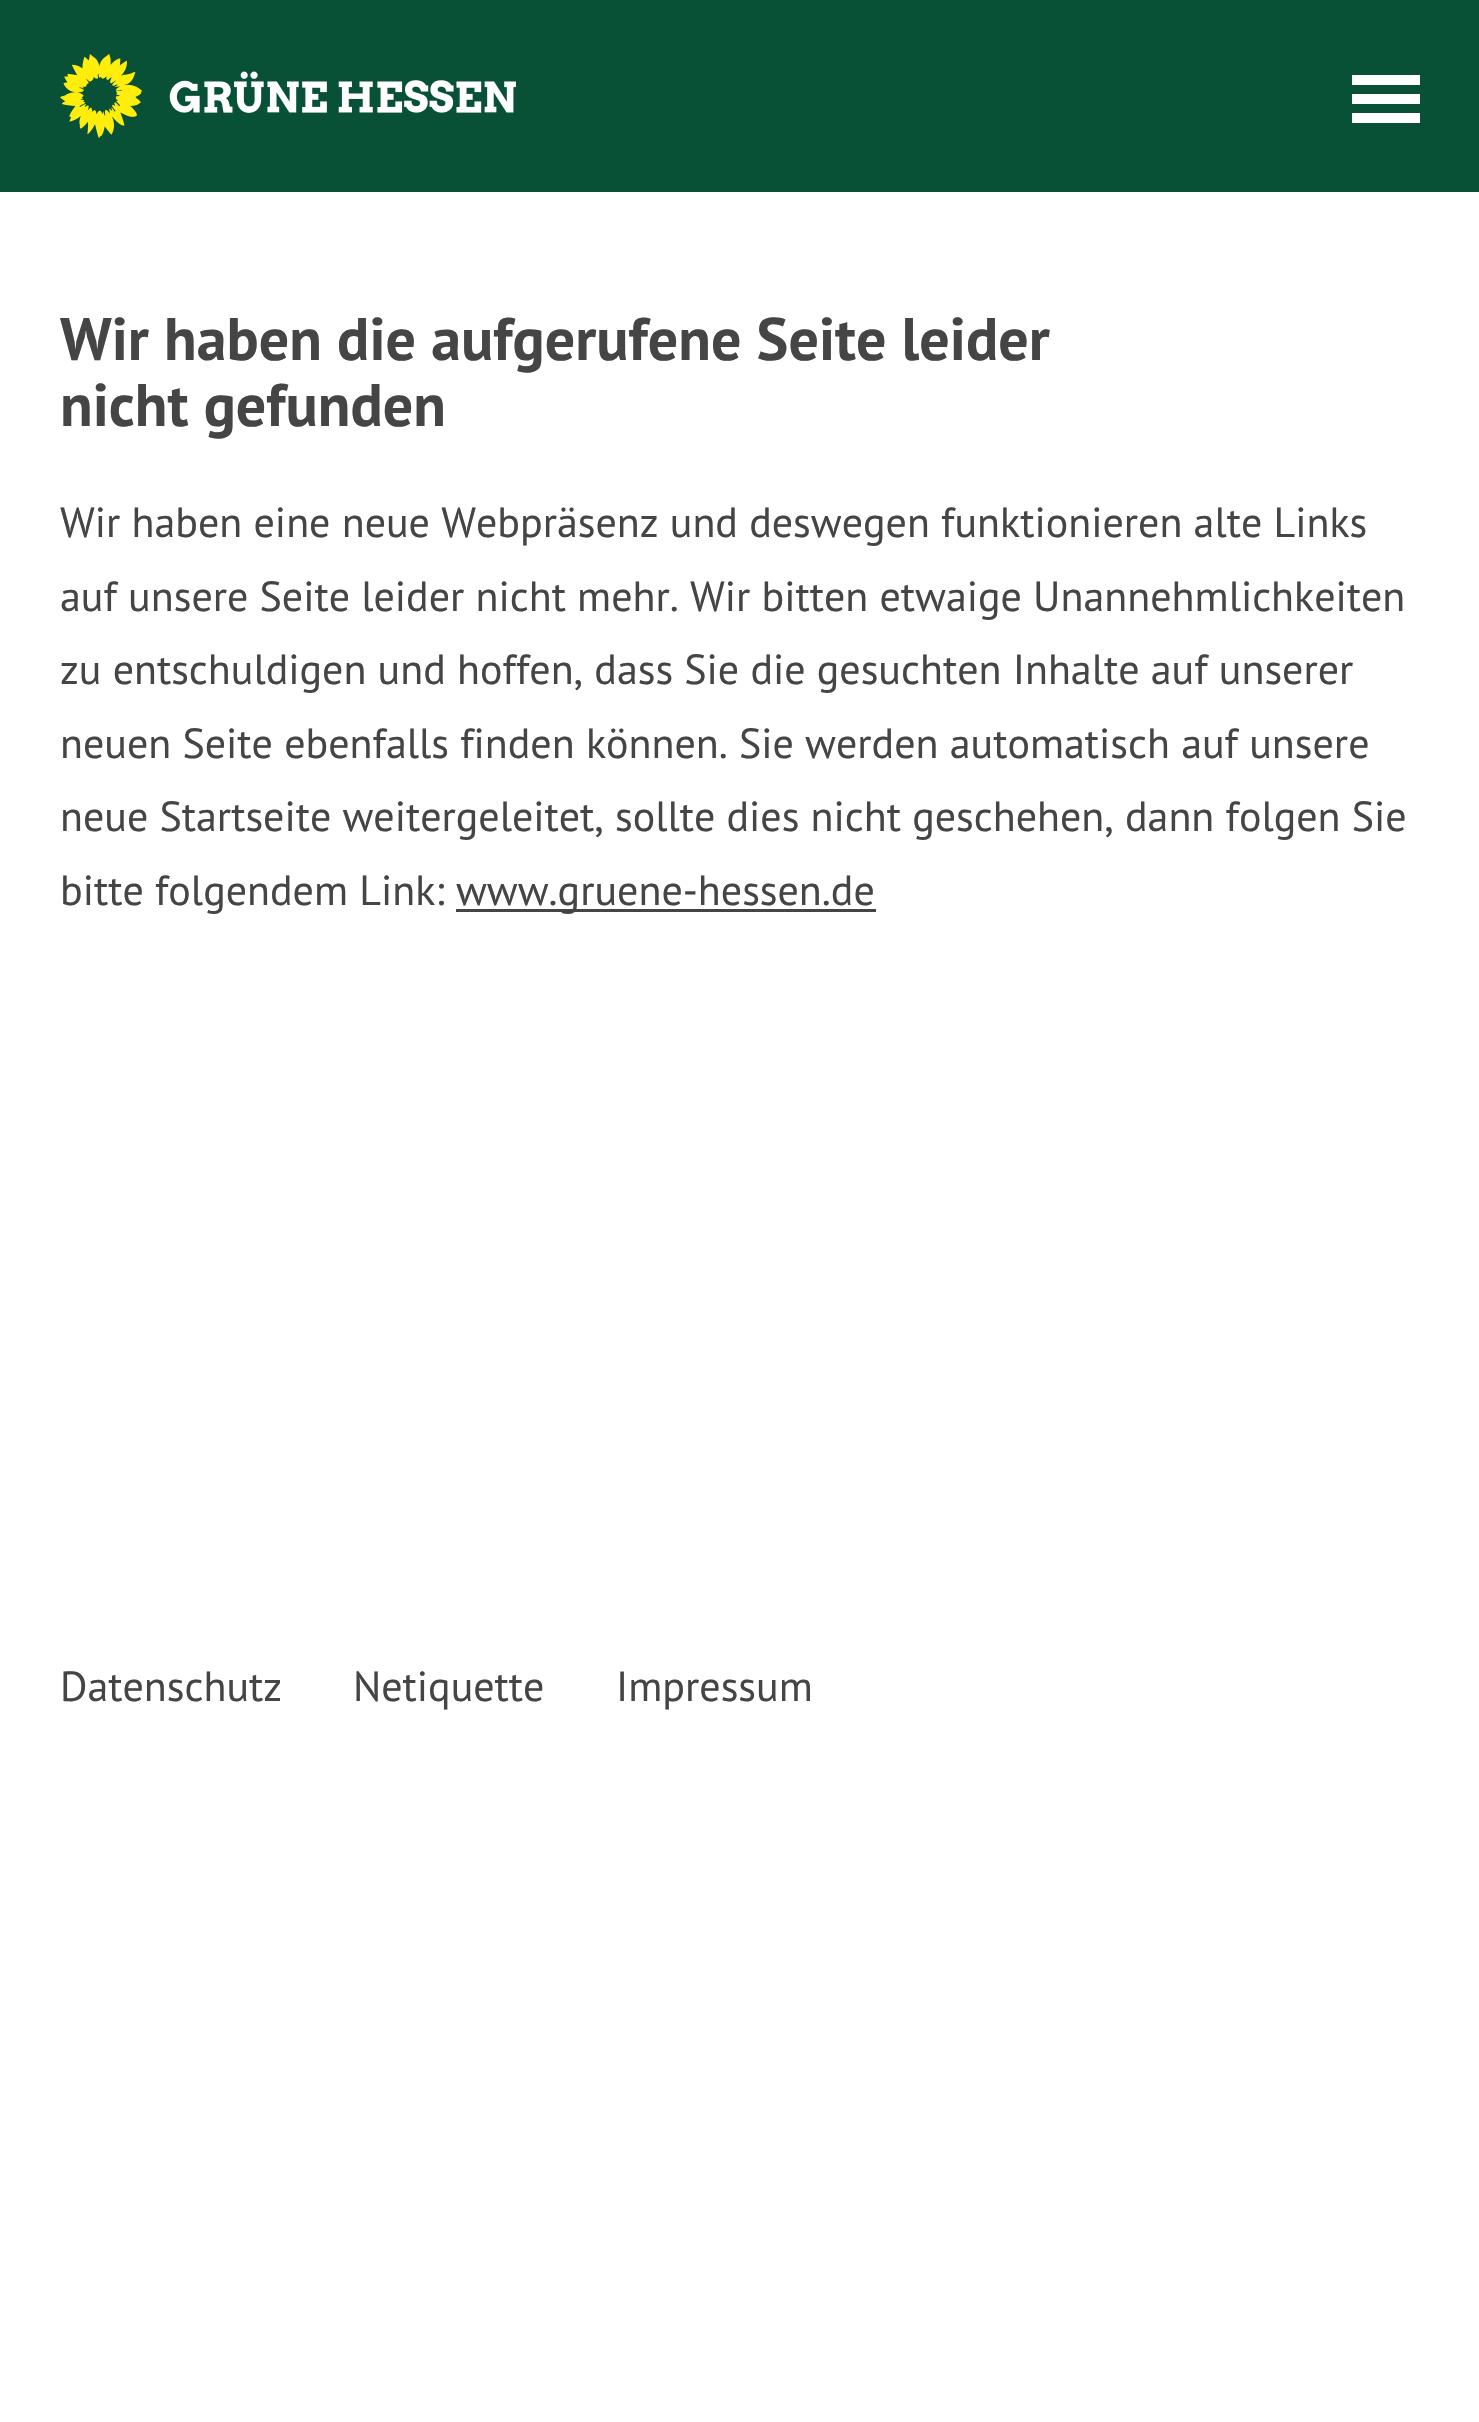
#include "include/core/SkBlurTypes.h"
#include "include/core/SkCanvas.h"
#include "include/core/SkData.h"
#include "include/core/SkFont.h"
#include "include/core/SkFontMgr.h"
#include "include/core/SkImage.h"
#include "include/core/SkMaskFilter.h"
#include "include/core/SkPaint.h"
#include "include/core/SkPathBuilder.h"
#include "include/core/SkTextBlob.h"
#include "include/effects/SkDashPathEffect.h"
#include "include/effects/SkGradientShader.h"
#include "include/utils/SkParsePath.h"

extern sk_sp<SkFontMgr> fontMgr;

static SkFont font(const char* family, int weight, float size, bool italic = false) {
    SkFontStyle style(weight, SkFontStyle::kNormal_Width,
        italic ? SkFontStyle::kItalic_Slant : SkFontStyle::kUpright_Slant);
    SkFont result(fontMgr->matchFamilyStyle(family, style), size);
    result.setSubpixel(true);
    return result;
}

static void drawLabel(SkCanvas* canvas, const char* s, float x, float y, const SkFont& font, SkColor color) {
    SkPaint ink(SkColor4f::FromColor(color));
    ink.setAntiAlias(true);
    canvas->drawString(s, x, y, font, ink);
}

static void fillRect(SkCanvas* canvas, float x, float y, float w, float h, SkColor color) {
    SkPaint ink(SkColor4f::FromColor(color));
    ink.setAntiAlias(true);
    canvas->drawRect(SkRect::MakeXYWH(x, y, w, h), ink);
}

static void drawPhoto(SkCanvas* canvas, const char* path, float x, float y, float w, float h) {
    auto image = SkImages::DeferredFromEncodedData(SkData::MakeFromFileName(path));
    canvas->drawImageRect(image, SkRect::MakeXYWH(x, y, w, h), SkSamplingOptions());
}

static SkPath parsePath(const char* data, bool evenOdd = false) {
    SkPath result = *SkParsePath::FromSVGString(data);
    if (evenOdd) result.setFillType(SkPathFillType::kEvenOdd);
    return result;
}

void draw(SkCanvas* canvas) {
    SkPaint paint;
    paint.setAntiAlias(true);
    canvas->clear(0xFFFFFFFF);
    fillRect(canvas, 0, 0, 1479, 192, 0xFF085136);
    drawPhoto(canvas, "assets/img1.png", 60, 54, 456, 84);
    paint.setColor(0xFFFFFFFF);
    canvas->drawPath(parsePath("M1352 123H1420V113H1352ZM1352 75V85H1420V75ZM1352 104H1420V94H1352Z"), paint);
    SkFont font1 = font("PT Sans", 700, 60);
    drawLabel(canvas, "Wir haben die aufgerufene Seite leider", 60, 360, font1, 0xFF454545);
    drawLabel(canvas, "nicht gefunden", 60, 426, font1, 0xFF454545);
    SkFont font2 = font("PT Sans", 400, 42);
    drawLabel(canvas, "Wir haben eine neue Webpräsenz und deswegen funktionieren alte Links", 60, 537, font2, 0xFF454545);
    drawLabel(canvas, "auf unsere Seite leider nicht mehr. Wir bitten etwaige Unannehmlichkeiten", 60, 611, font2, 0xFF454545);
    drawLabel(canvas, "zu entschuldigen und hoffen, dass Sie die gesuchten Inhalte auf unserer", 60, 684, font2, 0xFF454545);
    drawLabel(canvas, "neuen Seite ebenfalls finden können. Sie werden automatisch auf unsere", 60, 758, font2, 0xFF454545);
    drawLabel(canvas, "neue Startseite weitergeleitet, sollte dies nicht geschehen, dann folgen Sie", 60, 831, font2, 0xFF454545);
    drawLabel(canvas, "bitte folgendem Link:", 60, 905, font2, 0xFF454545);
    fillRect(canvas, 456, 909, 420, 3, 0xFF454545);
    drawLabel(canvas, "www.gruene-hessen.de", 456, 905, font2, 0xFF454545);
    drawLabel(canvas, "Datenschutz", 60, 1701, font2, 0xFF454545);
    drawLabel(canvas, "Netiquette", 353, 1701, font2, 0xFF454545);
    drawLabel(canvas, "Impressum", 616, 1701, font2, 0xFF454545);
}
